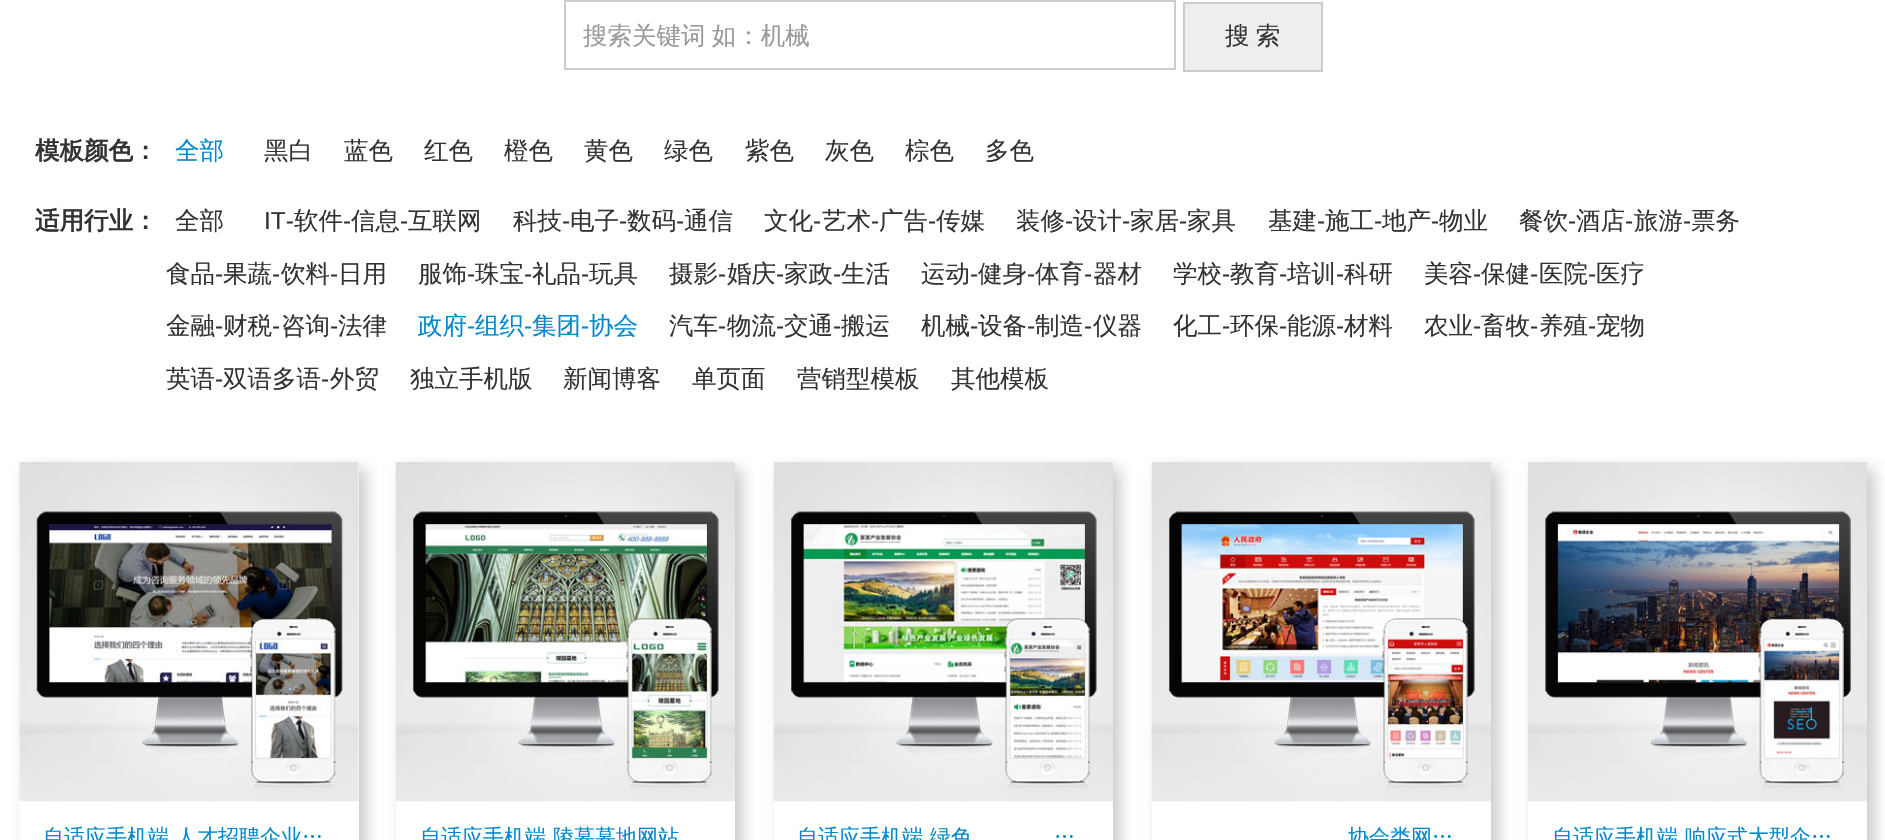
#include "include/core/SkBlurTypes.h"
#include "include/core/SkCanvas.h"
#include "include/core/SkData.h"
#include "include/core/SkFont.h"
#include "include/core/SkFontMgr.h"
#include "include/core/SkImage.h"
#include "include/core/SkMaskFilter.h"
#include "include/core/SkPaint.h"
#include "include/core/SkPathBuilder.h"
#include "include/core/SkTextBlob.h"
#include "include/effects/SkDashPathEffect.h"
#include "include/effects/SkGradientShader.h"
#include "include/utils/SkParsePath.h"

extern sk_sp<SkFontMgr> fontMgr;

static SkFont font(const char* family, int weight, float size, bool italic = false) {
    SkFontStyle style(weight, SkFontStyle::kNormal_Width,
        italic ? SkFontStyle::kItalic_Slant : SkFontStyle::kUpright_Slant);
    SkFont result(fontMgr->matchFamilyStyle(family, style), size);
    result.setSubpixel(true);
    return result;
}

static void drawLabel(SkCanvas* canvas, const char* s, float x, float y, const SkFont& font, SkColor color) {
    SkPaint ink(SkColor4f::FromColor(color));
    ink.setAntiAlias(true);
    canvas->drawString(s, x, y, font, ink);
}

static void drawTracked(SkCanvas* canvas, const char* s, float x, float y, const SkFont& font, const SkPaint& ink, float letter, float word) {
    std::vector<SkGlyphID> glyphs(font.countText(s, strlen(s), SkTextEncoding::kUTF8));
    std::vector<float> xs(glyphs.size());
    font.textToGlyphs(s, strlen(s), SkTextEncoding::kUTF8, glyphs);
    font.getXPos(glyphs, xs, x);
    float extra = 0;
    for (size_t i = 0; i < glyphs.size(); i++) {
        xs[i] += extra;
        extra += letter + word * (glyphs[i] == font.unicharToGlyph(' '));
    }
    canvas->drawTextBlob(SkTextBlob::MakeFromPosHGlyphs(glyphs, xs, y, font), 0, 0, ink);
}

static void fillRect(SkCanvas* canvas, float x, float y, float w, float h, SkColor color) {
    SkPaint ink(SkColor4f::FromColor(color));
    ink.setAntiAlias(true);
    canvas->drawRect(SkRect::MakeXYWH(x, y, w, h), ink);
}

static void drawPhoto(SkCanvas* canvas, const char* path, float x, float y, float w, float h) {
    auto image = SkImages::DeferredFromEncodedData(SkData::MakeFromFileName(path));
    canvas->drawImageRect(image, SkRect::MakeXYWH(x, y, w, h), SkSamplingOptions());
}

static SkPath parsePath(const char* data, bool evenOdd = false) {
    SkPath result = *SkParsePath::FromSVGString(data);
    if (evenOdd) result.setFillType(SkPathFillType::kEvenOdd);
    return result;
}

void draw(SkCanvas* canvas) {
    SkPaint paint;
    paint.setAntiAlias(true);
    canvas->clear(0xFFFFFFFF);
    paint.setStroke(true);
    paint.setStrokeWidth(2);
    paint.setColor(0xFFCCCCCC);
    canvas->drawRect(SkRect::MakeXYWH(565, 1, 610, 68), paint);
    SkFont font1 = font("WenQuanYi Zen Hei", 500, 24.5f);
    paint.setStroke(false);
    paint.setColor(0xFF999999);
    drawTracked(canvas, "搜索关键词 如：机械", 583, 44, font1, paint, 0, -1);
    paint.setColor(0xFFEEEEEE);
    canvas->drawRect(SkRect::MakeXYWH(1184, 3, 138, 68), paint);
    paint.setStroke(true);
    paint.setColor(0xFFCCCCCC);
    canvas->drawRect(SkRect::MakeXYWH(1184, 3, 138, 68), paint);
    paint.setStroke(false);
    paint.setColor(0xFF333333);
    drawTracked(canvas, "搜 索", 1225, 44, font1, paint, 0, -1);
    SkFont font2 = font("WenQuanYi Zen Hei", 700, 24.5f);
    drawLabel(canvas, "模板颜色：", 35, 159, font2, 0xFF333333);
    drawLabel(canvas, "全部", 175, 159, font1, 0xFF0088CC);
    drawLabel(canvas, "黑白", 264, 159, font1, 0xFF333333);
    drawLabel(canvas, "蓝色", 344, 159, font1, 0xFF333333);
    drawLabel(canvas, "红色", 424, 159, font1, 0xFF333333);
    drawLabel(canvas, "橙色", 504, 159, font1, 0xFF333333);
    drawLabel(canvas, "黄色", 584, 159, font1, 0xFF333333);
    drawLabel(canvas, "绿色", 664, 159, font1, 0xFF333333);
    drawLabel(canvas, "紫色", 745, 159, font1, 0xFF333333);
    drawLabel(canvas, "灰色", 825, 159, font1, 0xFF333333);
    drawLabel(canvas, "棕色", 905, 159, font1, 0xFF333333);
    drawLabel(canvas, "多色", 985, 159, font1, 0xFF333333);
    drawLabel(canvas, "适用行业：", 35, 229, font2, 0xFF333333);
    drawLabel(canvas, "全部", 175, 229, font1, 0xFF333333);
    SkFont font3 = font("Liberation Sans", 400, 24.5f);
    drawLabel(canvas, "IT-", 264, 229, font3, 0xFF333333);
    drawLabel(canvas, "软件", 294, 229, font1, 0xFF333333);
    drawLabel(canvas, "-", 343, 229, font3, 0xFF333333);
    drawLabel(canvas, "信息", 351, 229, font1, 0xFF333333);
    drawLabel(canvas, "-", 400, 229, font3, 0xFF333333);
    drawLabel(canvas, "互联网", 408, 229, font1, 0xFF333333);
    drawLabel(canvas, "科技", 513, 229, font1, 0xFF333333);
    drawLabel(canvas, "-", 562, 229, font3, 0xFF333333);
    drawLabel(canvas, "电子", 570, 229, font1, 0xFF333333);
    drawLabel(canvas, "-", 619, 229, font3, 0xFF333333);
    drawLabel(canvas, "数码", 627, 229, font1, 0xFF333333);
    drawLabel(canvas, "-", 676, 229, font3, 0xFF333333);
    drawLabel(canvas, "通信", 684, 229, font1, 0xFF333333);
    drawLabel(canvas, "文化", 764, 229, font1, 0xFF333333);
    drawLabel(canvas, "-", 813, 229, font3, 0xFF333333);
    drawLabel(canvas, "艺术", 822, 229, font1, 0xFF333333);
    drawLabel(canvas, "-", 871, 229, font3, 0xFF333333);
    drawLabel(canvas, "广告", 879, 229, font1, 0xFF333333);
    drawLabel(canvas, "-", 928, 229, font3, 0xFF333333);
    drawLabel(canvas, "传媒", 936, 229, font1, 0xFF333333);
    drawLabel(canvas, "装修", 1016, 229, font1, 0xFF333333);
    drawLabel(canvas, "-", 1065, 229, font3, 0xFF333333);
    drawLabel(canvas, "设计", 1073, 229, font1, 0xFF333333);
    drawLabel(canvas, "-", 1122, 229, font3, 0xFF333333);
    drawLabel(canvas, "家居", 1130, 229, font1, 0xFF333333);
    drawLabel(canvas, "-", 1179, 229, font3, 0xFF333333);
    drawLabel(canvas, "家具", 1187, 229, font1, 0xFF333333);
    drawLabel(canvas, "基建", 1268, 229, font1, 0xFF333333);
    drawLabel(canvas, "-", 1317, 229, font3, 0xFF333333);
    drawLabel(canvas, "施工", 1325, 229, font1, 0xFF333333);
    drawLabel(canvas, "-", 1374, 229, font3, 0xFF333333);
    drawLabel(canvas, "地产", 1382, 229, font1, 0xFF333333);
    drawLabel(canvas, "-", 1431, 229, font3, 0xFF333333);
    drawLabel(canvas, "物业", 1439, 229, font1, 0xFF333333);
    drawLabel(canvas, "餐饮", 1519, 229, font1, 0xFF333333);
    drawLabel(canvas, "-", 1568, 229, font3, 0xFF333333);
    drawLabel(canvas, "酒店", 1576, 229, font1, 0xFF333333);
    drawLabel(canvas, "-", 1625, 229, font3, 0xFF333333);
    drawLabel(canvas, "旅游", 1634, 229, font1, 0xFF333333);
    drawLabel(canvas, "-", 1683, 229, font3, 0xFF333333);
    drawLabel(canvas, "票务", 1691, 229, font1, 0xFF333333);
    drawLabel(canvas, "食品", 166, 282, font1, 0xFF333333);
    drawLabel(canvas, "-", 215, 282, font3, 0xFF333333);
    drawLabel(canvas, "果蔬", 223, 282, font1, 0xFF333333);
    drawLabel(canvas, "-", 272, 282, font3, 0xFF333333);
    drawLabel(canvas, "饮料", 281, 282, font1, 0xFF333333);
    drawLabel(canvas, "-", 330, 282, font3, 0xFF333333);
    drawLabel(canvas, "日用", 338, 282, font1, 0xFF333333);
    drawLabel(canvas, "服饰", 418, 282, font1, 0xFF333333);
    drawLabel(canvas, "-", 467, 282, font3, 0xFF333333);
    drawLabel(canvas, "珠宝", 475, 282, font1, 0xFF333333);
    drawLabel(canvas, "-", 524, 282, font3, 0xFF333333);
    drawLabel(canvas, "礼品", 532, 282, font1, 0xFF333333);
    drawLabel(canvas, "-", 581, 282, font3, 0xFF333333);
    drawLabel(canvas, "玩具", 589, 282, font1, 0xFF333333);
    drawLabel(canvas, "摄影", 669, 282, font1, 0xFF333333);
    drawLabel(canvas, "-", 718, 282, font3, 0xFF333333);
    drawLabel(canvas, "婚庆", 727, 282, font1, 0xFF333333);
    drawLabel(canvas, "-", 776, 282, font3, 0xFF333333);
    drawLabel(canvas, "家政", 784, 282, font1, 0xFF333333);
    drawLabel(canvas, "-", 833, 282, font3, 0xFF333333);
    drawLabel(canvas, "生活", 841, 282, font1, 0xFF333333);
    drawLabel(canvas, "运动", 921, 282, font1, 0xFF333333);
    drawLabel(canvas, "-", 970, 282, font3, 0xFF333333);
    drawLabel(canvas, "健身", 978, 282, font1, 0xFF333333);
    drawLabel(canvas, "-", 1027, 282, font3, 0xFF333333);
    drawLabel(canvas, "体育", 1035, 282, font1, 0xFF333333);
    drawLabel(canvas, "-", 1084, 282, font3, 0xFF333333);
    drawLabel(canvas, "器材", 1093, 282, font1, 0xFF333333);
    drawLabel(canvas, "学校", 1173, 282, font1, 0xFF333333);
    drawLabel(canvas, "-", 1222, 282, font3, 0xFF333333);
    drawLabel(canvas, "教育", 1230, 282, font1, 0xFF333333);
    drawLabel(canvas, "-", 1279, 282, font3, 0xFF333333);
    drawLabel(canvas, "培训", 1287, 282, font1, 0xFF333333);
    drawLabel(canvas, "-", 1336, 282, font3, 0xFF333333);
    drawLabel(canvas, "科研", 1344, 282, font1, 0xFF333333);
    drawLabel(canvas, "美容", 1424, 282, font1, 0xFF333333);
    drawLabel(canvas, "-", 1473, 282, font3, 0xFF333333);
    drawLabel(canvas, "保健", 1481, 282, font1, 0xFF333333);
    drawLabel(canvas, "-", 1530, 282, font3, 0xFF333333);
    drawLabel(canvas, "医院", 1539, 282, font1, 0xFF333333);
    drawLabel(canvas, "-", 1588, 282, font3, 0xFF333333);
    drawLabel(canvas, "医疗", 1596, 282, font1, 0xFF333333);
    drawLabel(canvas, "金融", 166, 334, font1, 0xFF333333);
    drawLabel(canvas, "-", 215, 334, font3, 0xFF333333);
    drawLabel(canvas, "财税", 223, 334, font1, 0xFF333333);
    drawLabel(canvas, "-", 272, 334, font3, 0xFF333333);
    drawLabel(canvas, "咨询", 281, 334, font1, 0xFF333333);
    drawLabel(canvas, "-", 330, 334, font3, 0xFF333333);
    drawLabel(canvas, "法律", 338, 334, font1, 0xFF333333);
    drawLabel(canvas, "政府", 418, 334, font1, 0xFF0088CC);
    drawLabel(canvas, "-", 467, 334, font3, 0xFF0088CC);
    drawLabel(canvas, "组织", 475, 334, font1, 0xFF0088CC);
    drawLabel(canvas, "-", 524, 334, font3, 0xFF0088CC);
    drawLabel(canvas, "集团", 532, 334, font1, 0xFF0088CC);
    drawLabel(canvas, "-", 581, 334, font3, 0xFF0088CC);
    drawLabel(canvas, "协会", 589, 334, font1, 0xFF0088CC);
    drawLabel(canvas, "汽车", 669, 334, font1, 0xFF333333);
    drawLabel(canvas, "-", 718, 334, font3, 0xFF333333);
    drawLabel(canvas, "物流", 727, 334, font1, 0xFF333333);
    drawLabel(canvas, "-", 776, 334, font3, 0xFF333333);
    drawLabel(canvas, "交通", 784, 334, font1, 0xFF333333);
    drawLabel(canvas, "-", 833, 334, font3, 0xFF333333);
    drawLabel(canvas, "搬运", 841, 334, font1, 0xFF333333);
    drawLabel(canvas, "机械", 921, 334, font1, 0xFF333333);
    drawLabel(canvas, "-", 970, 334, font3, 0xFF333333);
    drawLabel(canvas, "设备", 978, 334, font1, 0xFF333333);
    drawLabel(canvas, "-", 1027, 334, font3, 0xFF333333);
    drawLabel(canvas, "制造", 1035, 334, font1, 0xFF333333);
    drawLabel(canvas, "-", 1084, 334, font3, 0xFF333333);
    drawLabel(canvas, "仪器", 1093, 334, font1, 0xFF333333);
    drawLabel(canvas, "化工", 1173, 334, font1, 0xFF333333);
    drawLabel(canvas, "-", 1222, 334, font3, 0xFF333333);
    drawLabel(canvas, "环保", 1230, 334, font1, 0xFF333333);
    drawLabel(canvas, "-", 1279, 334, font3, 0xFF333333);
    drawLabel(canvas, "能源", 1287, 334, font1, 0xFF333333);
    drawLabel(canvas, "-", 1336, 334, font3, 0xFF333333);
    drawLabel(canvas, "材料", 1344, 334, font1, 0xFF333333);
    drawLabel(canvas, "农业", 1424, 334, font1, 0xFF333333);
    drawLabel(canvas, "-", 1473, 334, font3, 0xFF333333);
    drawLabel(canvas, "畜牧", 1481, 334, font1, 0xFF333333);
    drawLabel(canvas, "-", 1530, 334, font3, 0xFF333333);
    drawLabel(canvas, "养殖", 1539, 334, font1, 0xFF333333);
    drawLabel(canvas, "-", 1588, 334, font3, 0xFF333333);
    drawLabel(canvas, "宠物", 1596, 334, font1, 0xFF333333);
    drawLabel(canvas, "英语", 166, 387, font1, 0xFF333333);
    drawLabel(canvas, "-", 215, 387, font3, 0xFF333333);
    drawLabel(canvas, "双语多语", 223, 387, font1, 0xFF333333);
    drawLabel(canvas, "-", 321, 387, font3, 0xFF333333);
    drawLabel(canvas, "外贸", 330, 387, font1, 0xFF333333);
    drawLabel(canvas, "独立手机版", 410, 387, font1, 0xFF333333);
    drawLabel(canvas, "新闻博客", 563, 387, font1, 0xFF333333);
    drawLabel(canvas, "单页面", 692, 387, font1, 0xFF333333);
    drawLabel(canvas, "营销型模板", 797, 387, font1, 0xFF333333);
    drawLabel(canvas, "其他模板", 951, 387, font1, 0xFF333333);
    canvas->save();
    canvas->clipRect(SkRect::MakeXYWH(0, 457, 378, 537));
    paint.setColor(0xFFCBCACA);
    paint.setMaskFilter(SkMaskFilter::MakeBlur(kNormal_SkBlurStyle, 7));
    canvas->drawRect(SkRect::MakeXYWH(26, 469, 340, 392), paint);
    paint.setMaskFilter(nullptr);
    canvas->restore();
    fillRect(canvas, 19, 462, 340, 378, 0xFFFFFFFF);
    drawPhoto(canvas, "assets/img1.png", 19, 462, 340, 340);
    SkFont font4 = font("WenQuanYi Zen Hei", 500, 21);
    drawLabel(canvas, "自适应手机端", 43, 844, font4, 0xFF0088CC);
    drawLabel(canvas, "人才招聘企业…", 176, 844, font4, 0xFF0088CC);
    canvas->save();
    canvas->clipRect(SkRect::MakeXYWH(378, 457, 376, 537));
    canvas->clipPath(parsePath("M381 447H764V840H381ZM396 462H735V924H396Z", true), true);
    paint.setMaskFilter(SkMaskFilter::MakeBlur(kNormal_SkBlurStyle, 7));
    canvas->drawRect(SkRect::MakeXYWH(403, 469, 339, 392), paint);
    paint.setMaskFilter(nullptr);
    canvas->restore();
    drawPhoto(canvas, "assets/img2.png", 395, 462, 340, 340);
    drawLabel(canvas, "自适应手机端", 420, 844, font4, 0xFF0088CC);
    drawLabel(canvas, "陵墓墓地网站", 553, 844, font4, 0xFF0088CC);
    canvas->save();
    canvas->clipRect(SkRect::MakeXYWH(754, 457, 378, 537));
    canvas->clipPath(parsePath("M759 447H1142V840H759ZM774 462H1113V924H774Z", true), true);
    paint.setMaskFilter(SkMaskFilter::MakeBlur(kNormal_SkBlurStyle, 7));
    canvas->drawRect(SkRect::MakeXYWH(781, 469, 339, 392), paint);
    paint.setMaskFilter(nullptr);
    canvas->restore();
    drawPhoto(canvas, "assets/img3.png", 773, 462, 340, 340);
    drawLabel(canvas, "自适应手机端", 797, 844, font4, 0xFF0088CC);
    drawLabel(canvas, "绿色", 930, 844, font4, 0xFF0088CC);
    paint.setColor(0xFF0088CC);
    drawTracked(canvas, "…", 1054, 844, font4, paint, 0, -1);
    canvas->save();
    canvas->clipRect(SkRect::MakeXYWH(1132, 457, 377, 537));
    canvas->clipPath(parsePath("M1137 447H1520V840H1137ZM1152 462H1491V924H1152Z", true), true);
    paint.setColor(0xFFCBCACA);
    paint.setMaskFilter(SkMaskFilter::MakeBlur(kNormal_SkBlurStyle, 7));
    canvas->drawRect(SkRect::MakeXYWH(1159, 469, 339, 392), paint);
    paint.setMaskFilter(nullptr);
    canvas->restore();
    drawPhoto(canvas, "assets/img4.png", 1151, 462, 340, 340);
    paint.setColor(0xFF0088CC);
    drawTracked(canvas, "协会类网…", 1348, 844, font4, paint, 0, -1);
    canvas->save();
    canvas->clipRect(SkRect::MakeXYWH(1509, 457, 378, 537));
    canvas->clipPath(parsePath("M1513 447H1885V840H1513ZM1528 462H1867V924H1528Z", true), true);
    paint.setColor(0xFFCBCACA);
    paint.setMaskFilter(SkMaskFilter::MakeBlur(kNormal_SkBlurStyle, 7));
    canvas->drawRect(SkRect::MakeXYWH(1535, 469, 339, 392), paint);
    paint.setMaskFilter(nullptr);
    canvas->restore();
    drawPhoto(canvas, "assets/img5.png", 1528, 462, 339, 340);
    drawLabel(canvas, "自适应手机端", 1552, 844, font4, 0xFF0088CC);
    drawLabel(canvas, "响应式大型企…", 1685, 844, font4, 0xFF0088CC);
}
